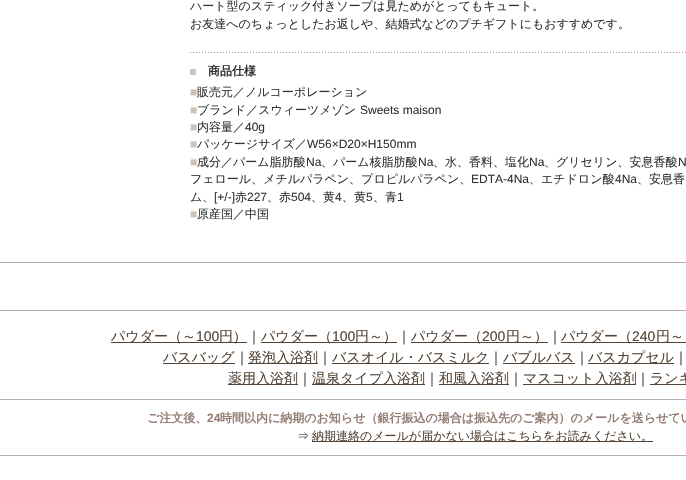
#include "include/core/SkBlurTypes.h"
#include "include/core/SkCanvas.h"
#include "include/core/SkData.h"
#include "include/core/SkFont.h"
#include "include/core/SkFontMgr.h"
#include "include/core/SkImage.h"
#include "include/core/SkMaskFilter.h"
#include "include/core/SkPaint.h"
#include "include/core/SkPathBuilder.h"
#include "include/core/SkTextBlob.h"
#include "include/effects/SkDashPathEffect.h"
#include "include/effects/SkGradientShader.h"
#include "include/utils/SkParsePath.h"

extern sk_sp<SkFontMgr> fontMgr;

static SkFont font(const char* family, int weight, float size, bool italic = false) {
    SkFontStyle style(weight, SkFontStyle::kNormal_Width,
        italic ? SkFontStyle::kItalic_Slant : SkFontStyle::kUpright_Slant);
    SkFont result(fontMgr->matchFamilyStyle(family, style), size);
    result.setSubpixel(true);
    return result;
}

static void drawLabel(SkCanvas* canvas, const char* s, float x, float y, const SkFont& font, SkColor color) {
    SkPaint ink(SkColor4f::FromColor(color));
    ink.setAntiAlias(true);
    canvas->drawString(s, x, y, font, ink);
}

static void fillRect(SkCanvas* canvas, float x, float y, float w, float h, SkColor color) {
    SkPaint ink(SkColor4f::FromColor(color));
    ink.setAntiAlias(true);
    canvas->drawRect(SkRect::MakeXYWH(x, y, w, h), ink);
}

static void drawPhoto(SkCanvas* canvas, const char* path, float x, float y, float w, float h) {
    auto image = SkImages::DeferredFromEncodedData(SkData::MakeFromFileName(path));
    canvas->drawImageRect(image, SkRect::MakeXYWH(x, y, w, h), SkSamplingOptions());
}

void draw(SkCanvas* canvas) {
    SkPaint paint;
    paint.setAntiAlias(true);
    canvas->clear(0xFFFFFFFF);
    SkFont font1 = font("WenQuanYi Zen Hei", 500, 12);
    drawLabel(canvas, "ハート型のスティック付きソープは見ためがとってもキュート。", 190, 10, font1, 0xFF333333);
    drawLabel(canvas, "お友達へのちょっとしたお返しや、結婚式などのプチギフトにもおすすめです。", 190, 28, font1, 0xFF333333);
    drawPhoto(canvas, "assets/img1.png", 190, 52, 496, 1);
    fillRect(canvas, 190, 69, 6, 6, 0xFFCFC3B8);
    SkFont font2 = font("WenQuanYi Zen Hei", 700, 12);
    drawLabel(canvas, "商品仕様", 208, 75, font2, 0xFF333333);
    SkFont font3 = font("Liberation Sans", 400, 12);
    drawLabel(canvas, "■", 190, 96, font3, 0xFFCFC3B8);
    drawLabel(canvas, "販売元／ノルコーポレーション", 197, 96, font1, 0xFF333333);
    drawLabel(canvas, "■", 190, 114, font3, 0xFFCFC3B8);
    drawLabel(canvas, "ブランド／スウィーツメゾン", 197, 114, font1, 0xFF333333);
    drawLabel(canvas, "Sweets maison", 360, 114, font3, 0xFF333333);
    drawLabel(canvas, "■", 190, 131, font3, 0xFFCFC3B8);
    drawLabel(canvas, "内容量／", 197, 131, font1, 0xFF333333);
    drawLabel(canvas, "40g", 245, 131, font3, 0xFF333333);
    drawLabel(canvas, "■", 190, 148, font3, 0xFFCFC3B8);
    drawLabel(canvas, "パッケージサイズ／", 197, 148, font1, 0xFF333333);
    drawLabel(canvas, "W56×D20×H150mm", 307, 148, font3, 0xFF333333);
    drawLabel(canvas, "■", 190, 166, font3, 0xFFCFC3B8);
    drawLabel(canvas, "成分／パーム脂肪酸", 197, 166, font1, 0xFF333333);
    drawLabel(canvas, "Na", 306, 166, font3, 0xFF333333);
    drawLabel(canvas, "、パーム核脂肪酸", 321, 166, font1, 0xFF333333);
    drawLabel(canvas, "Na", 418, 166, font3, 0xFF333333);
    drawLabel(canvas, "、水、香料、塩化", 433, 166, font1, 0xFF333333);
    drawLabel(canvas, "Na", 529, 166, font3, 0xFF333333);
    drawLabel(canvas, "、グリセリン、安息香酸", 544, 166, font1, 0xFF333333);
    drawLabel(canvas, "N", 678, 166, font3, 0xFF333333);
    drawLabel(canvas, "フェロール、メチルパラペン、プロピルパラペン、", 190, 183, font1, 0xFF333333);
    drawLabel(canvas, "EDTA-4Na", 471, 183, font3, 0xFF333333);
    drawLabel(canvas, "、エチドロン酸", 529, 183, font1, 0xFF333333);
    drawLabel(canvas, "4Na", 615, 183, font3, 0xFF333333);
    drawLabel(canvas, "、安息香", 637, 183, font1, 0xFF333333);
    drawLabel(canvas, "ム、", 190, 201, font1, 0xFF333333);
    drawLabel(canvas, "[+/-]", 214, 201, font3, 0xFF333333);
    drawLabel(canvas, "赤", 235, 201, font1, 0xFF333333);
    drawLabel(canvas, "227", 247, 201, font3, 0xFF333333);
    drawLabel(canvas, "、赤", 267, 201, font1, 0xFF333333);
    drawLabel(canvas, "504", 291, 201, font3, 0xFF333333);
    drawLabel(canvas, "、黄", 311, 201, font1, 0xFF333333);
    drawLabel(canvas, "4", 335, 201, font3, 0xFF333333);
    drawLabel(canvas, "、黄", 342, 201, font1, 0xFF333333);
    drawLabel(canvas, "5", 366, 201, font3, 0xFF333333);
    drawLabel(canvas, "、青", 373, 201, font1, 0xFF333333);
    drawLabel(canvas, "1", 397, 201, font3, 0xFF333333);
    drawLabel(canvas, "■", 190, 218, font3, 0xFFCFC3B8);
    drawLabel(canvas, "原産国／中国", 197, 218, font1, 0xFF333333);
    fillRect(canvas, 0, 262, 686, 1, 0xFFBAAFA7);
    fillRect(canvas, 0, 310, 686, 1, 0xFFBAAFA7);
    fillRect(canvas, 111, 342, 136, 1, 0xFF524336);
    SkFont font4 = font("WenQuanYi Zen Hei", 500, 14);
    drawLabel(canvas, "パウダー（～", 111, 341, font4, 0xFF524336);
    SkFont font5 = font("Liberation Sans", 400, 14);
    drawLabel(canvas, "100", 196, 341, font5, 0xFF524336);
    drawLabel(canvas, "円）", 219, 341, font4, 0xFF524336);
    drawLabel(canvas, "｜", 247, 341, font4, 0xFF333333);
    fillRect(canvas, 261, 342, 136, 1, 0xFF524336);
    drawLabel(canvas, "パウダー（", 261, 341, font4, 0xFF524336);
    drawLabel(canvas, "100", 332, 341, font5, 0xFF524336);
    drawLabel(canvas, "円～）", 355, 341, font4, 0xFF524336);
    drawLabel(canvas, "｜", 397, 341, font4, 0xFF333333);
    fillRect(canvas, 411, 342, 137, 1, 0xFF524336);
    drawLabel(canvas, "パウダー（", 411, 341, font4, 0xFF524336);
    drawLabel(canvas, "200", 482, 341, font5, 0xFF524336);
    drawLabel(canvas, "円～）", 506, 341, font4, 0xFF524336);
    drawLabel(canvas, "｜", 548, 341, font4, 0xFF333333);
    fillRect(canvas, 561, 342, 125, 1, 0xFF524336);
    drawLabel(canvas, "パウダー（", 561, 341, font4, 0xFF524336);
    drawLabel(canvas, "240", 632, 341, font5, 0xFF524336);
    drawLabel(canvas, "円～", 656, 341, font4, 0xFF524336);
    fillRect(canvas, 163, 363, 72, 1, 0xFF524336);
    drawLabel(canvas, "バスバッグ", 163, 362, font4, 0xFF524336);
    drawLabel(canvas, "｜", 235, 362, font4, 0xFF333333);
    fillRect(canvas, 248, 363, 70, 1, 0xFF524336);
    drawLabel(canvas, "発泡入浴剤", 248, 362, font4, 0xFF524336);
    drawLabel(canvas, "｜", 318, 362, font4, 0xFF333333);
    fillRect(canvas, 332, 363, 157, 1, 0xFF524336);
    drawLabel(canvas, "バスオイル・バスミルク", 332, 362, font4, 0xFF524336);
    drawLabel(canvas, "｜", 489, 362, font4, 0xFF333333);
    fillRect(canvas, 503, 363, 72, 1, 0xFF524336);
    drawLabel(canvas, "バブルバス", 503, 362, font4, 0xFF524336);
    drawLabel(canvas, "｜", 575, 362, font4, 0xFF333333);
    fillRect(canvas, 588, 363, 86, 1, 0xFF524336);
    drawLabel(canvas, "バスカプセル", 588, 362, font4, 0xFF524336);
    drawLabel(canvas, "｜", 674, 362, font4, 0xFF333333);
    fillRect(canvas, 228, 384, 70, 1, 0xFF524336);
    drawLabel(canvas, "薬用入浴剤", 228, 383, font4, 0xFF524336);
    drawLabel(canvas, "｜", 298, 383, font4, 0xFF333333);
    fillRect(canvas, 312, 384, 113, 1, 0xFF524336);
    drawLabel(canvas, "温泉タイプ入浴剤", 312, 383, font4, 0xFF524336);
    drawLabel(canvas, "｜", 425, 383, font4, 0xFF333333);
    fillRect(canvas, 439, 384, 70, 1, 0xFF524336);
    drawLabel(canvas, "和風入浴剤", 439, 383, font4, 0xFF524336);
    drawLabel(canvas, "｜", 509, 383, font4, 0xFF333333);
    fillRect(canvas, 523, 384, 113, 1, 0xFF524336);
    drawLabel(canvas, "マスコット入浴剤", 523, 383, font4, 0xFF524336);
    drawLabel(canvas, "｜", 636, 383, font4, 0xFF333333);
    fillRect(canvas, 650, 384, 36, 1, 0xFF524336);
    drawLabel(canvas, "ランキ", 650, 383, font4, 0xFF524336);
    fillRect(canvas, 0, 399, 686, 1, 0xFFBAAFA7);
    drawLabel(canvas, "ご注文後、", 147, 422, font2, 0xFF937C73);
    SkFont font6 = font("Liberation Sans", 700, 12);
    drawLabel(canvas, "24", 207, 422, font6, 0xFF937C73);
    drawLabel(canvas, "時間以内に納期のお知らせ（銀行振込の場合は振込先のご案内）のメールを送らせてい", 220, 422, font2, 0xFF937C73);
    drawLabel(canvas, "⇒", 297, 440, font1, 0xFF333333);
    fillRect(canvas, 312, 441, 341, 1, 0xFF524336);
    drawLabel(canvas, "納期連絡のメールが届かない場合はこちらをお読みください。", 312, 440, font1, 0xFF524336);
    fillRect(canvas, 0, 455, 686, 1, 0xFFBAAFA7);
}
